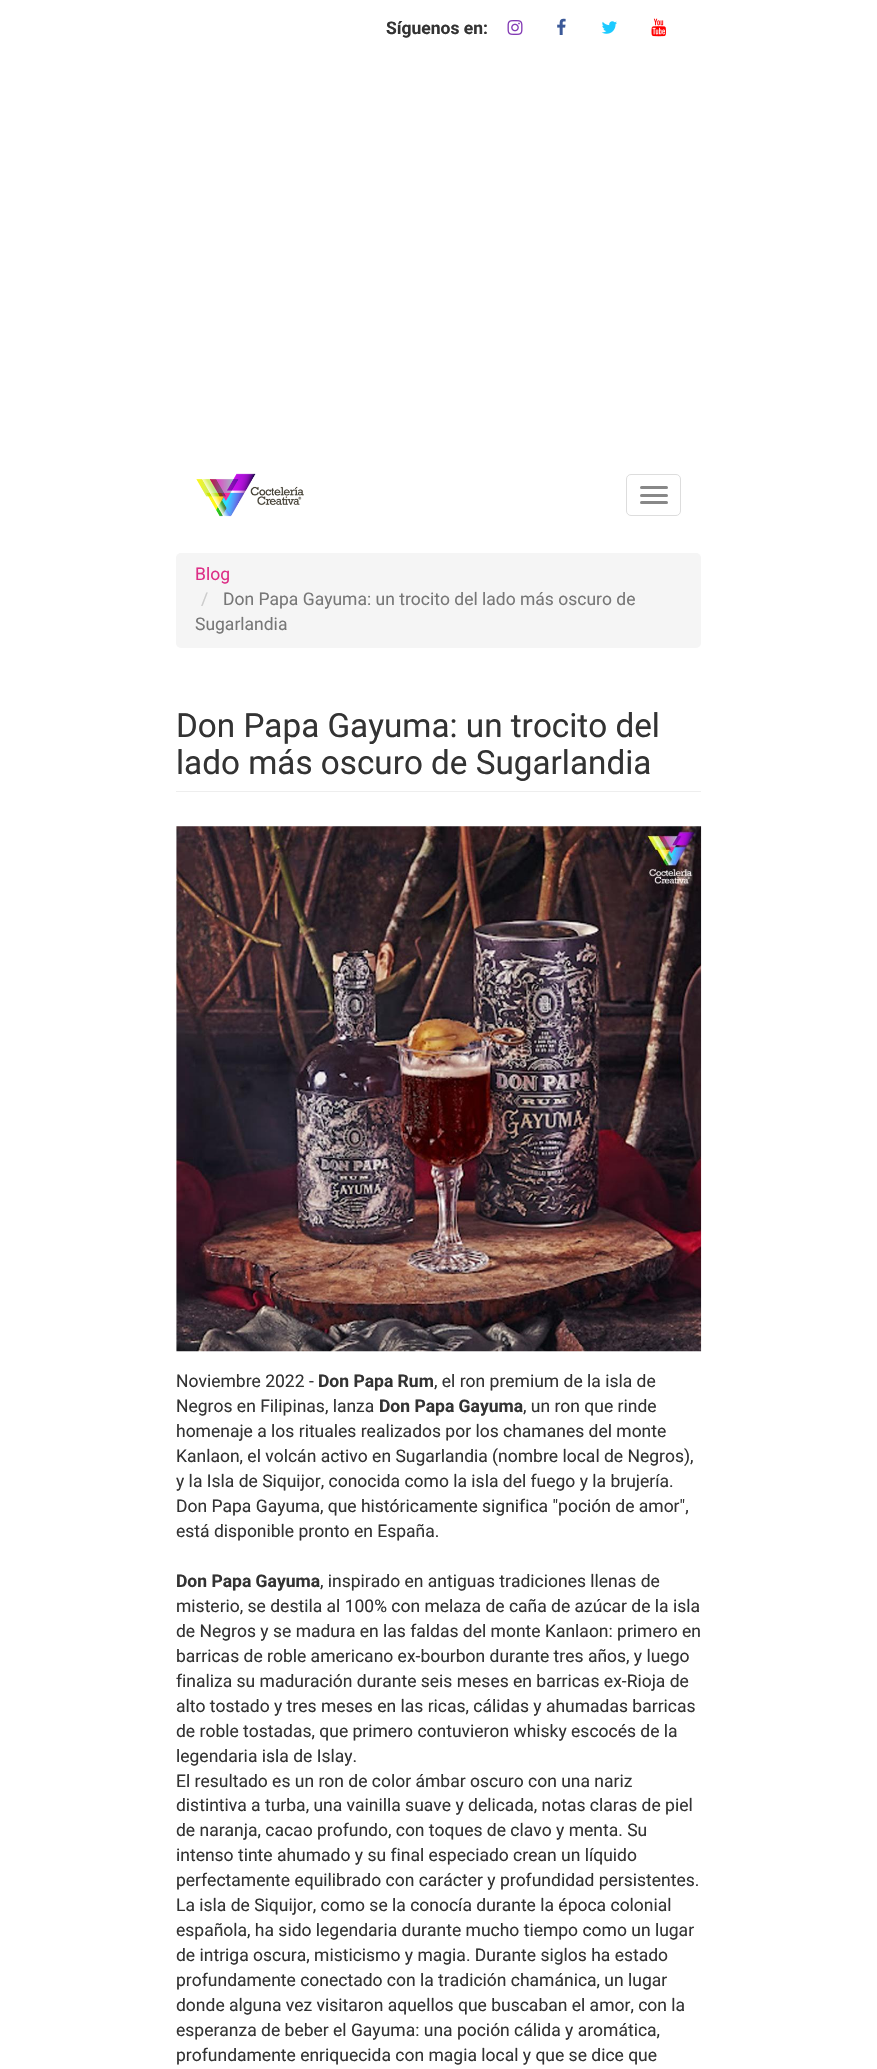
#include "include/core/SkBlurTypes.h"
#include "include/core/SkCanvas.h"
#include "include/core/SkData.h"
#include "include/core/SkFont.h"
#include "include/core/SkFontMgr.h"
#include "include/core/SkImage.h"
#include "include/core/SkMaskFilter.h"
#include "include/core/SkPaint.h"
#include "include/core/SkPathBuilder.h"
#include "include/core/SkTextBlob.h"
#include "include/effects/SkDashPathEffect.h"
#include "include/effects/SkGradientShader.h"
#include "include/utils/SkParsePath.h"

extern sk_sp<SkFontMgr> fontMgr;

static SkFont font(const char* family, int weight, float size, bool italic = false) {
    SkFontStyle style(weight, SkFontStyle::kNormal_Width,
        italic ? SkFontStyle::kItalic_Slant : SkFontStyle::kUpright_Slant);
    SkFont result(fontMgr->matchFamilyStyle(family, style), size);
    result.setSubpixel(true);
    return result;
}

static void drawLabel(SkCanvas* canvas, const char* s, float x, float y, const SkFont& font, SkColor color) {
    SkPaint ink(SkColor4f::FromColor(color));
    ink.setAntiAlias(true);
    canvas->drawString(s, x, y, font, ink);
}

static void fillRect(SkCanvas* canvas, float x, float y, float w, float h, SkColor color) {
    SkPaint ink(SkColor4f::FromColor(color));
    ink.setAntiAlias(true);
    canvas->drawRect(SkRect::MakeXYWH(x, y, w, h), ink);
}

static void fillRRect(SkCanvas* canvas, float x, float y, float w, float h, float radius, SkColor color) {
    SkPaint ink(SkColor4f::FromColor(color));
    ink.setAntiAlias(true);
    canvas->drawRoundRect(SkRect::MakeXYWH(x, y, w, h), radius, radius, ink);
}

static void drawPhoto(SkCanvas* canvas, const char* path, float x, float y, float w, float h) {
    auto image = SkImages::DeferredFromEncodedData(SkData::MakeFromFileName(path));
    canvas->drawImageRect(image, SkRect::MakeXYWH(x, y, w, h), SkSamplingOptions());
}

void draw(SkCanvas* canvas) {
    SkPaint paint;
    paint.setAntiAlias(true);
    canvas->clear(0xFFFFFFFF);
    SkFont font1 = font("Roboto", 700, 17.5f);
    drawLabel(canvas, "Síguenos en:", 386, 34, font1, 0xFF333333);
    drawPhoto(canvas, "assets/img1.png", 507, 20, 16, 15);
    drawPhoto(canvas, "assets/img2.png", 557, 18, 9, 17);
    drawPhoto(canvas, "assets/img3.png", 601, 21, 16, 13);
    drawPhoto(canvas, "assets/img4.png", 651, 18, 15, 19);
    drawPhoto(canvas, "assets/img5.png", 196, 473, 108, 44);
    paint.setStroke(true);
    paint.setStrokeWidth(1);
    paint.setColor(0xFFDDDDDD);
    canvas->drawRoundRect(SkRect::MakeXYWH(626.5f, 474.5f, 54, 41), 4.5f, 4.5f, paint);
    fillRRect(canvas, 640, 486, 28, 3, 1.5f, 0xFF888888);
    fillRRect(canvas, 640, 494, 28, 3, 1.5f, 0xFF888888);
    fillRRect(canvas, 640, 501, 28, 3, 1.5f, 0xFF888888);
    fillRRect(canvas, 176, 553, 525, 95, 5, 0xFFF5F5F5);
    SkFont font2 = font("Roboto", 400, 17.5f);
    drawLabel(canvas, "Blog", 195, 580, font2, 0xFFDD2F87);
    drawLabel(canvas, "/", 201, 605, font2, 0xFFCCCCCC);
    drawLabel(canvas, "Don Papa Gayuma: un trocito del lado más oscuro de", 223, 605, font2, 0xFF777777);
    drawLabel(canvas, "Sugarlandia", 195, 630, font2, 0xFF777777);
    fillRect(canvas, 176, 791, 525, 1, 0xFFEEEEEE);
    SkFont font3 = font("Roboto", 400, 33.25f);
    drawLabel(canvas, "Don Papa Gayuma: un trocito del", 176, 737, font3, 0xFF333333);
    drawLabel(canvas, "lado más oscuro de Sugarlandia", 176, 774, font3, 0xFF333333);
    drawPhoto(canvas, "assets/img6.png", 176, 826, 526, 526);
    drawLabel(canvas, "Noviembre 2022 -", 176, 1387, font2, 0xFF333333);
    drawLabel(canvas, "Don Papa Rum", 318, 1387, font1, 0xFF333333);
    drawLabel(canvas, ", el ron premium de la isla de", 434, 1387, font2, 0xFF333333);
    drawLabel(canvas, "Negros en Filipinas, lanza", 176, 1412, font2, 0xFF333333);
    drawLabel(canvas, "Don Papa Gayuma", 379, 1412, font1, 0xFF333333);
    drawLabel(canvas, ", un ron que rinde", 523, 1412, font2, 0xFF333333);
    drawLabel(canvas, "homenaje a los rituales realizados por los chamanes del monte", 176, 1437, font2, 0xFF333333);
    drawLabel(canvas, "Kanlaon, el volcán activo en Sugarlandia (nombre local de Negros),", 176, 1462, font2, 0xFF333333);
    drawLabel(canvas, "y la Isla de Siquijor, conocida como la isla del fuego y la brujería.", 176, 1487, font2, 0xFF333333);
    drawLabel(canvas, "Don Papa Gayuma, que históricamente significa \"poción de amor\",", 176, 1512, font2, 0xFF333333);
    drawLabel(canvas, "está disponible pronto en España.", 176, 1537, font2, 0xFF333333);
    drawLabel(canvas, "Don Papa Gayuma", 176, 1587, font1, 0xFF333333);
    drawLabel(canvas, ", inspirado en antiguas tradiciones llenas de", 320, 1587, font2, 0xFF333333);
    drawLabel(canvas, "misterio, se destila al 100% con melaza de caña de azúcar de la isla", 176, 1612, font2, 0xFF333333);
    drawLabel(canvas, "de Negros y se madura en las faldas del monte Kanlaon: primero en", 176, 1637, font2, 0xFF333333);
    drawLabel(canvas, "barricas de roble americano ex-bourbon durante tres años, y luego", 176, 1662, font2, 0xFF333333);
    drawLabel(canvas, "finaliza su maduración durante seis meses en barricas ex-Rioja de", 176, 1687, font2, 0xFF333333);
    drawLabel(canvas, "alto tostado y tres meses en las ricas, cálidas y ahumadas barricas", 176, 1712, font2, 0xFF333333);
    drawLabel(canvas, "de roble tostadas, que primero contuvieron whisky escocés de la", 176, 1737, font2, 0xFF333333);
    drawLabel(canvas, "legendaria isla de Islay.", 176, 1762, font2, 0xFF333333);
    drawLabel(canvas, "El resultado es un ron de color ámbar oscuro con una nariz", 176, 1787, font2, 0xFF333333);
    drawLabel(canvas, "distintiva a turba, una vainilla suave y delicada, notas claras de piel", 176, 1811, font2, 0xFF333333);
    drawLabel(canvas, "de naranja, cacao profundo, con toques de clavo y menta. Su", 176, 1836, font2, 0xFF333333);
    drawLabel(canvas, "intenso tinte ahumado y su final especiado crean un líquido", 176, 1861, font2, 0xFF333333);
    drawLabel(canvas, "perfectamente equilibrado con carácter y profundidad persistentes.", 176, 1886, font2, 0xFF333333);
    drawLabel(canvas, "La isla de Siquijor, como se la conocía durante la época colonial", 176, 1911, font2, 0xFF333333);
    drawLabel(canvas, "española, ha sido legendaria durante mucho tiempo como un lugar", 176, 1936, font2, 0xFF333333);
    drawLabel(canvas, "de intriga oscura, misticismo y magia. Durante siglos ha estado", 176, 1961, font2, 0xFF333333);
    drawLabel(canvas, "profundamente conectado con la tradición chamánica, un lugar", 176, 1986, font2, 0xFF333333);
    drawLabel(canvas, "donde alguna vez visitaron aquellos que buscaban el amor, con la", 176, 2011, font2, 0xFF333333);
    drawLabel(canvas, "esperanza de beber el Gayuma: una poción cálida y aromática,", 176, 2036, font2, 0xFF333333);
    drawLabel(canvas, "profundamente enriquecida con magia local y que se dice que", 176, 2061, font2, 0xFF333333);
}
